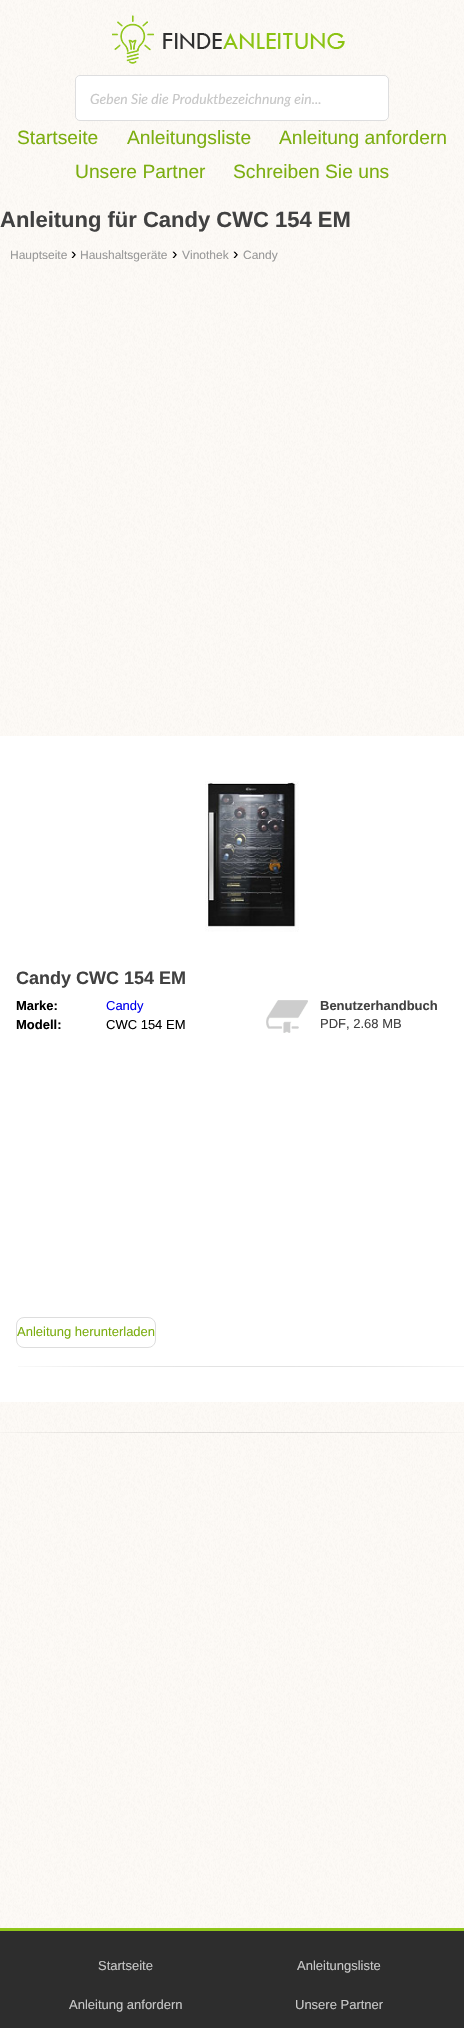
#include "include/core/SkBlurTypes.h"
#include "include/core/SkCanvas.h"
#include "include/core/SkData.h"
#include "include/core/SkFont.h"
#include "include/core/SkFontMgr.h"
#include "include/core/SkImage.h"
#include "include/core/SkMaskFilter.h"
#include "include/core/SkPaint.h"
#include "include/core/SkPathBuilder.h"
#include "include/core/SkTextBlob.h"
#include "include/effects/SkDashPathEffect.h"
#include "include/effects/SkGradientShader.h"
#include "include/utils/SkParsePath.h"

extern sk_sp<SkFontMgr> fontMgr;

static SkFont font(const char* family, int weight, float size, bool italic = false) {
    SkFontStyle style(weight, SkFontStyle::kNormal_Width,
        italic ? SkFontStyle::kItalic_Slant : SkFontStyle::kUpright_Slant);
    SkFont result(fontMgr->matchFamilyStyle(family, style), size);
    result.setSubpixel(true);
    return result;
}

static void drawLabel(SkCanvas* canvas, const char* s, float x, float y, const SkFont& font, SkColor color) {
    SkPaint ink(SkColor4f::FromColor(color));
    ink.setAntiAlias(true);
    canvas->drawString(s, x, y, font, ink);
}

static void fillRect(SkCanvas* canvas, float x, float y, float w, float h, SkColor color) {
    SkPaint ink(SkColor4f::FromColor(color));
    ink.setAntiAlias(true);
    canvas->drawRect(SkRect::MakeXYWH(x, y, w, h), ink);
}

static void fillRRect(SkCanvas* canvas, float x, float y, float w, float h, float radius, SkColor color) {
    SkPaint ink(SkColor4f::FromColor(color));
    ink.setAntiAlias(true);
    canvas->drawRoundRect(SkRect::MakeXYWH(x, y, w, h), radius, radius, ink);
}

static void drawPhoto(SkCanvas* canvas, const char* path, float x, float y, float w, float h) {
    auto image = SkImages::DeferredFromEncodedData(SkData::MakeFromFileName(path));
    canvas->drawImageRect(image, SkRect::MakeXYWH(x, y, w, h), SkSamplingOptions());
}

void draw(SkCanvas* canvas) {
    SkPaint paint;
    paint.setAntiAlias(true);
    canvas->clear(0xFFFFFFFF);
    drawPhoto(canvas, "assets/img1.png", 0, 0, 464, 1928);
    drawPhoto(canvas, "assets/img2.png", 112, 15, 233, 49);
    fillRRect(canvas, 75, 75, 314, 46, 5, 0xFFFFFFFF);
    paint.setStroke(true);
    paint.setStrokeWidth(1);
    paint.setColor(0x26222426);
    canvas->drawRoundRect(SkRect::MakeXYWH(75.5f, 75.5f, 313, 45), 4.5f, 4.5f, paint);
    SkFont font1 = font("Lato", 400, 14, true);
    drawLabel(canvas, "Geben Sie die Produktbezeichnung ein...", 90, 104, font1, 0xFFC7C7C7);
    SkFont font2 = font("Liberation Sans", 400, 19.25f);
    drawLabel(canvas, "Startseite", 17, 144, font2, 0xFF7CAE11);
    drawLabel(canvas, "Anleitungsliste", 127, 144, font2, 0xFF7CAE11);
    drawLabel(canvas, "Anleitung anfordern", 279, 144, font2, 0xFF7CAE11);
    drawLabel(canvas, "Unsere Partner", 75, 178, font2, 0xFF7CAE11);
    drawLabel(canvas, "Schreiben Sie uns", 233, 178, font2, 0xFF7CAE11);
    SkFont font3 = font("Liberation Sans", 700, 22);
    drawLabel(canvas, "Anleitung für Candy CWC 154 EM", 0, 227, font3, 0xFF414141);
    SkFont font4 = font("Liberation Sans", 400, 12);
    drawLabel(canvas, "Hauptseite", 10, 259, font4, 0xFF999999);
    SkFont font5 = font("Liberation Sans", 400, 16);
    drawLabel(canvas, "›", 71, 259, font5, 0xFF000000);
    drawLabel(canvas, "Haushaltsgeräte", 80, 259, font4, 0xFF999999);
    drawLabel(canvas, "›", 172, 259, font5, 0xFF000000);
    drawLabel(canvas, "Vinothek", 182, 259, font4, 0xFF999999);
    drawLabel(canvas, "›", 233, 259, font5, 0xFF000000);
    drawLabel(canvas, "Candy", 243, 259, font4, 0xFF999999);
    fillRect(canvas, 0, 736, 464, 666, 0xFFFFFFFF);
    drawPhoto(canvas, "assets/img3.png", 18, 1366, 446, 1);
    drawPhoto(canvas, "assets/img4.png", 205, 781, 94, 151);
    SkFont font6 = font("Liberation Sans", 700, 18);
    drawLabel(canvas, "Candy CWC 154 EM", 16, 984, font6, 0xFF414141);
    SkFont font7 = font("Liberation Sans", 700, 13);
    drawLabel(canvas, "Marke:", 16, 1010, font7, 0xFF000000);
    SkFont font8 = font("Liberation Sans", 400, 13);
    drawLabel(canvas, "Candy", 106, 1010, font8, 0xFF0000EE);
    drawLabel(canvas, "Modell:", 16, 1029, font7, 0xFF000000);
    drawLabel(canvas, "CWC 154 EM", 106, 1029, font8, 0xFF000000);
    drawPhoto(canvas, "assets/img5.png", 266, 1000, 42, 33);
    drawLabel(canvas, "Benutzerhandbuch", 320, 1010, font7, 0xFF414141);
    drawLabel(canvas, "PDF, 2.68 MB", 320, 1028, font8, 0xFF414141);
    paint.setColor(0xFFDDDDDD);
    canvas->drawRoundRect(SkRect::MakeXYWH(16.5f, 1317.5f, 139, 30), 7.5f, 7.5f, paint);
    drawLabel(canvas, "Anleitung herunterladen", 17, 1336, font8, 0xFF7CAE11);
    drawPhoto(canvas, "assets/img6.png", 0, 1432, 464, 1);
    fillRect(canvas, 0, 1931, 464, 97, 0xFF2D2D2D);
    fillRect(canvas, 0, 1928, 464, 3, 0xFF90C61B);
    drawLabel(canvas, "Startseite", 98, 1970, font8, 0xFFC7C7C7);
    drawLabel(canvas, "Anleitungsliste", 297, 1970, font8, 0xFFC7C7C7);
    drawLabel(canvas, "Anleitung anfordern", 69, 2009, font8, 0xFFC7C7C7);
    drawLabel(canvas, "Unsere Partner", 295, 2009, font8, 0xFFC7C7C7);
}
